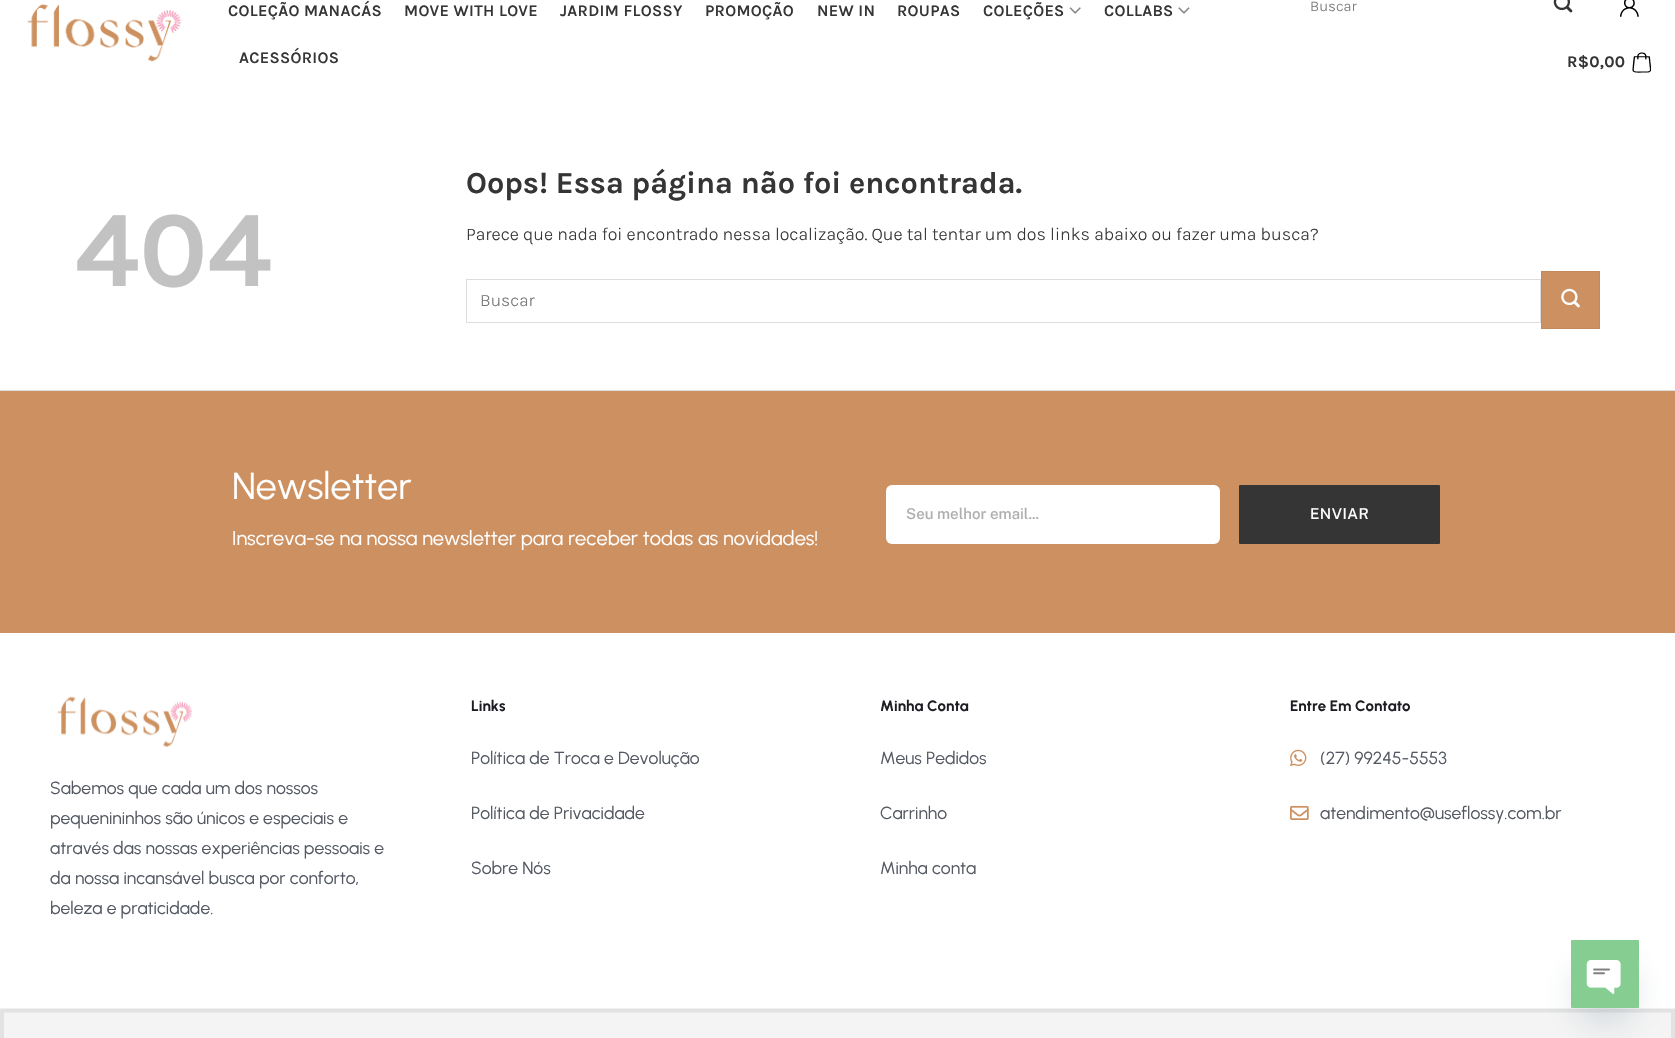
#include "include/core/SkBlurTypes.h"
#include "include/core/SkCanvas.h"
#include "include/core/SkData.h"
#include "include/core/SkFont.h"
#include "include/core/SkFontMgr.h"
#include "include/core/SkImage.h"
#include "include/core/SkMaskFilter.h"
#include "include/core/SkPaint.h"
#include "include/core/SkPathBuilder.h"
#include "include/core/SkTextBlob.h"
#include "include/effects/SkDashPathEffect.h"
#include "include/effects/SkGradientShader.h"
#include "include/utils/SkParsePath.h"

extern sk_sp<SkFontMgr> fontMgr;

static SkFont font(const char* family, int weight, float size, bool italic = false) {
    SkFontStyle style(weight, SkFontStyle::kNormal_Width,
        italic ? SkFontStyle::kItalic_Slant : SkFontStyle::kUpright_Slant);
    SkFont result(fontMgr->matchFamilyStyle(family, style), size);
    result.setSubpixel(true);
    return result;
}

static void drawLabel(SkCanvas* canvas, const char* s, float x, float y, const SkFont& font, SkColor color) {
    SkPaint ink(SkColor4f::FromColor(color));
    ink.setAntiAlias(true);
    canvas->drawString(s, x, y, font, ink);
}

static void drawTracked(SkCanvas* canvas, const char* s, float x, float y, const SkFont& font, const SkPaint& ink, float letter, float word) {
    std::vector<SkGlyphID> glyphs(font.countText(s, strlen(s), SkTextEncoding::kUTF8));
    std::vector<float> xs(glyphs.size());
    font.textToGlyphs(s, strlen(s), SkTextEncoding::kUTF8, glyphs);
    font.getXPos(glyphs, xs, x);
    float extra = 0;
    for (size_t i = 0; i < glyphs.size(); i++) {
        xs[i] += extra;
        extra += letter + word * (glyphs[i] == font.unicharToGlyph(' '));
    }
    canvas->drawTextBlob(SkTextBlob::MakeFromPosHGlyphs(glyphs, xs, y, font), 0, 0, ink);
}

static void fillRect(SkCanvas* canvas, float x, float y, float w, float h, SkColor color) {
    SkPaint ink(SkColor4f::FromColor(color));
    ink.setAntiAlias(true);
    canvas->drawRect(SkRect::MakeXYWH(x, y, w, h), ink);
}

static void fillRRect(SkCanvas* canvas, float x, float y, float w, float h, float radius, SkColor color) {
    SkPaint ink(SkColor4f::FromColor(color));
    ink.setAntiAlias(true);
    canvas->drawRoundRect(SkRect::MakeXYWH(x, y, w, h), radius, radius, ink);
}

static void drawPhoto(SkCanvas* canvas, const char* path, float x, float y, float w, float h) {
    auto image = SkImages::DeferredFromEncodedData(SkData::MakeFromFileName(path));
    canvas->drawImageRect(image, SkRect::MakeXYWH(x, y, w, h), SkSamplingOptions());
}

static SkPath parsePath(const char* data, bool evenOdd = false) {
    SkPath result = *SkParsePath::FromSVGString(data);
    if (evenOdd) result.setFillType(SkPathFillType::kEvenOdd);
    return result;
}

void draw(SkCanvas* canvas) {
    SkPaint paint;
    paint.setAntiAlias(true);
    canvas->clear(0xFFFFFFFF);
    drawPhoto(canvas, "assets/img1.png", 27, 4, 155, 58);
    SkFont font1 = font("Karla", 600, 16.25f);
    paint.setColor(0xFF353535);
    drawTracked(canvas, "COLEÇÃO MANACÁS", 228, 16, font1, paint, 0.3f, 0);
    drawTracked(canvas, "MOVE WITH LOVE", 404, 16, font1, paint, 0.3f, 0);
    drawTracked(canvas, "JARDIM FLOSSY", 560, 16, font1, paint, 0.3f, 0);
    drawTracked(canvas, "PROMOÇÃO", 705, 16, font1, paint, 0.3f, 0);
    drawTracked(canvas, "NEW IN", 817, 16, font1, paint, 0.3f, 0);
    drawTracked(canvas, "ROUPAS", 897, 16, font1, paint, 0.3f, 0);
    drawTracked(canvas, "COLEÇÕES", 983, 16, font1, paint, 0.3f, 0);
    drawPhoto(canvas, "assets/img2.png", 1069, 7, 12, 7);
    drawTracked(canvas, "COLLABS", 1104, 16, font1, paint, 0.3f, 0);
    drawPhoto(canvas, "assets/img3.png", 1178, 7, 12, 7);
    drawTracked(canvas, "ACESSÓRIOS", 239, 63, font1, paint, 0.3f, 0);
    SkFont font2 = font("Karla", 300, 15);
    drawLabel(canvas, "Buscar", 1310, 11, font2, 0xFF757575);
    drawPhoto(canvas, "assets/img4.png", 1553, 0, 20, 13);
    drawPhoto(canvas, "assets/img5.png", 1620, 0, 19, 17);
    SkFont font3 = font("Karla", 700, 16.25f);
    drawTracked(canvas, "R$0,00", 1567, 67, font3, paint, 0.3f, 0);
    drawPhoto(canvas, "assets/img6.png", 1632, 52, 19, 21);
    SkFont font4 = font("Karla", 700, 108);
    drawLabel(canvas, "404", 75, 286, font4, 0xFFC2C2C2);
    SkFont font5 = font("Karla", 700, 30.6f);
    drawLabel(canvas, "Oops! Essa página não foi encontrada.", 466, 193, font5, 0xFF353535);
    SkFont font6 = font("Karla", 300, 18);
    drawLabel(canvas, "Parece que nada foi encontrado nessa localização. Que tal tentar um dos links abaixo ou fazer uma busca?", 466, 240, font6, 0xFF353535);
    paint.setStroke(true);
    paint.setStrokeWidth(1);
    paint.setColor(0xFFDDDDDD);
    canvas->drawRect(SkRect::MakeXYWH(466.5f, 279.5f, 1074, 43), paint);
    SkFont font7 = font("Karla", 300, 17.5f);
    drawLabel(canvas, "Buscar", 480, 306, font7, 0xFF757575);
    paint.setStroke(false);
    paint.setColor(0xFFCC9061);
    canvas->drawRect(SkRect::MakeXYWH(1541.5f, 271.5f, 58, 57), paint);
    paint.setStroke(true);
    paint.setColor(0xFFC2895C);
    canvas->drawRect(SkRect::MakeXYWH(1541.5f, 271.5f, 58, 57), paint);
    drawPhoto(canvas, "assets/img7.png", 1561, 288, 19, 20);
    fillRect(canvas, 0, 391, 1675, 242, 0xFFCD9161);
    fillRect(canvas, 0, 390, 1675, 1, 0xFFDDDDDD);
    SkFont font8 = font("Urbanist", 400, 37.5f);
    drawLabel(canvas, "Newsletter", 232, 499, font8, 0xFFFFFFFF);
    SkFont font9 = font("Urbanist", 400, 20);
    drawLabel(canvas, "Inscreva-se na nossa newsletter para receber todas as novidades!", 232, 545, font9, 0xFFFFFFFF);
    fillRRect(canvas, 886, 485, 334, 59, 6, 0xFFFFFFFF);
    SkFont font10 = font("Public Sans", 500, 15);
    drawLabel(canvas, "Seu melhor email...", 906, 519, font10, 0xFFAFAFAF);
    fillRRect(canvas, 1239, 485, 201, 59, 1, 0xFF353535);
    paint.setStroke(false);
    paint.setColor(0xFFFFFFFF);
    drawTracked(canvas, "ENVIAR", 1310, 519, font10, paint, 0.5f, 0);
    SkFont font11 = font("Urbanist", 700, 15);
    drawLabel(canvas, "Links", 471, 711, font11, 0xFF1D1D24);
    SkFont font12 = font("Urbanist", 400, 17.5f);
    drawLabel(canvas, "Política de Troca e Devolução", 471, 764, font12, 0xFF535862);
    drawLabel(canvas, "Política de Privacidade", 471, 819, font12, 0xFF535862);
    drawLabel(canvas, "Sobre Nós", 471, 874, font12, 0xFF535862);
    drawLabel(canvas, "Minha Conta", 880, 711, font11, 0xFF1D1D24);
    drawLabel(canvas, "Meus Pedidos", 880, 764, font12, 0xFF535862);
    drawLabel(canvas, "Carrinho", 880, 819, font12, 0xFF535862);
    drawLabel(canvas, "Minha conta", 880, 874, font12, 0xFF535862);
    drawLabel(canvas, "Entre Em Contato", 1290, 711, font11, 0xFF1D1D24);
    drawPhoto(canvas, "assets/img8.png", 1290, 749, 17, 18);
    drawLabel(canvas, "(27) 99245-5553", 1320, 764, font12, 0xFF535862);
    drawPhoto(canvas, "assets/img9.png", 1290, 805, 19, 15);
    drawLabel(canvas, "atendimento@useflossy.com.br", 1320, 819, font12, 0xFF535862);
    drawPhoto(canvas, "assets/img10.png", 57, 696, 136, 52);
    drawLabel(canvas, "Sabemos que cada um dos nossos", 50, 794, font12, 0xFF535862);
    drawLabel(canvas, "pequenininhos são únicos e especiais e", 50, 824, font12, 0xFF535862);
    drawLabel(canvas, "através das nossas experiências pessoais e", 50, 854, font12, 0xFF535862);
    drawLabel(canvas, "da nossa incansável busca por conforto,", 50, 884, font12, 0xFF535862);
    drawLabel(canvas, "beleza e praticidade.", 50, 914, font12, 0xFF535862);
    paint.setColor(0xFFF4F4F4);
    canvas->drawPath(parsePath("M1 1009H1675V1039H0V1010C0 1009.5 .5 1009 1 1009Z"), paint);
    paint.setStroke(true);
    paint.setStrokeWidth(3.8f);
    paint.setColor(0xFFE2E2E2);
    canvas->drawPath(parsePath("M2 1010.5H1673V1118H2Z"), paint);
    paint.setStroke(false);
    paint.setColor(0x2949687E);
    paint.setMaskFilter(SkMaskFilter::MakeBlur(kNormal_SkBlurStyle, 15));
    canvas->drawRoundRect(SkRect::MakeXYWH(1571, 960, 68, 68), 34, 34, paint);
    paint.setMaskFilter(nullptr);
    fillRRect(canvas, 1571, 940, 68, 68, 1, 0xFF86CD91);
    drawPhoto(canvas, "assets/img11.png", 1586, 960, 35, 34);
}
